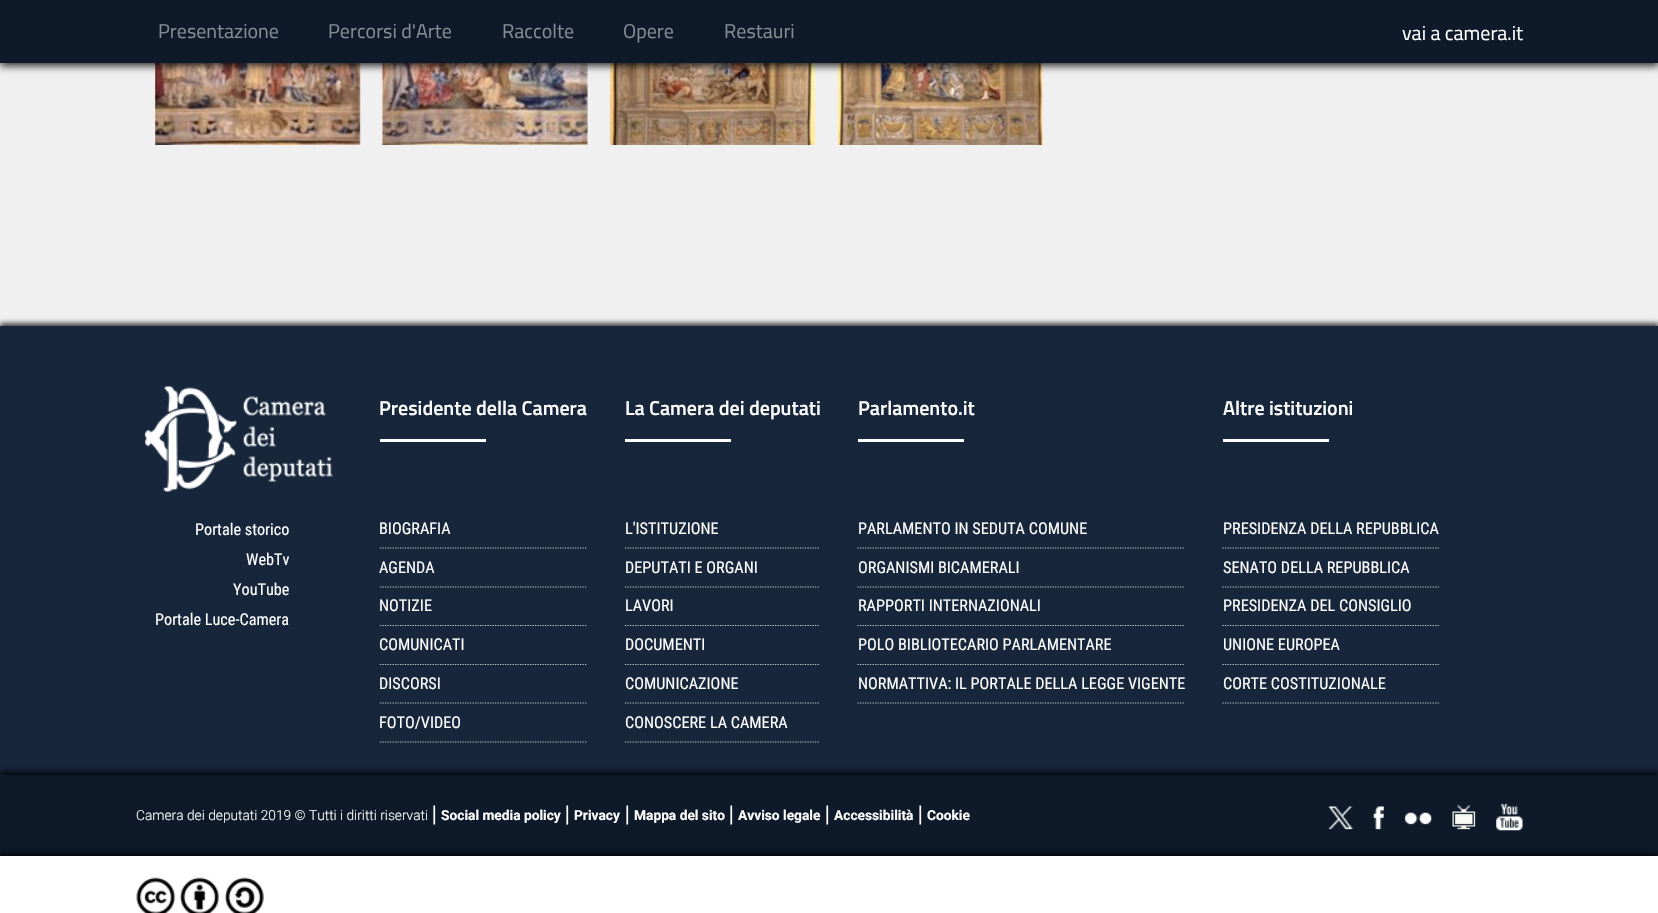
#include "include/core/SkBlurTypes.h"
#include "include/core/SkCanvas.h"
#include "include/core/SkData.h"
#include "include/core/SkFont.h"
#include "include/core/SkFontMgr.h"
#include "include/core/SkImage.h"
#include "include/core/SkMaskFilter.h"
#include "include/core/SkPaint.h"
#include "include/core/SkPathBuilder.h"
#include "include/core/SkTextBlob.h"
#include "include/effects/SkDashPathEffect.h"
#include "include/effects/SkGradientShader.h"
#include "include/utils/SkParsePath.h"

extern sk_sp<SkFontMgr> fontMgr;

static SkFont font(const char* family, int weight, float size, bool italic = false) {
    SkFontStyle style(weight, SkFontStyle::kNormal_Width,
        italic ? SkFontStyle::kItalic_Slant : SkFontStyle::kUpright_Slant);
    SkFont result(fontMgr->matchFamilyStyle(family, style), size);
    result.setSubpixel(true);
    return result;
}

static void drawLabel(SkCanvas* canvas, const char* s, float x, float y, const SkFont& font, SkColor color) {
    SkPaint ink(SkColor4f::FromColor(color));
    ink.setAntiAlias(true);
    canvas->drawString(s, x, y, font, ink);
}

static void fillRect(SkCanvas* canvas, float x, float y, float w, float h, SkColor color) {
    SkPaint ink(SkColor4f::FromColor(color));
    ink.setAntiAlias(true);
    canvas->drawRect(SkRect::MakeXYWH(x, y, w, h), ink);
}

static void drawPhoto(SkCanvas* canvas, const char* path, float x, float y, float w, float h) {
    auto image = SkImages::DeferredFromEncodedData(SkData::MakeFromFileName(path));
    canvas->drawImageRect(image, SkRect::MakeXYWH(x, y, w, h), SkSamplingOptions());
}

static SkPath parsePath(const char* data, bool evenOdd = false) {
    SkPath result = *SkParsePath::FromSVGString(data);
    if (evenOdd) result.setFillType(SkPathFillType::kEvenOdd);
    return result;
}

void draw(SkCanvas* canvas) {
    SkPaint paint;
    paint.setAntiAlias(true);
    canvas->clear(0xFFF0F0F0);
    drawPhoto(canvas, "assets/img1.png", 155, 63, 206, 82);
    drawPhoto(canvas, "assets/img2.png", 381, 63, 207, 82);
    drawPhoto(canvas, "assets/img3.png", 609, 63, 207, 82);
    drawPhoto(canvas, "assets/img4.png", 836, 63, 207, 82);
    paint.setColor(0xD1000000);
    paint.setMaskFilter(SkMaskFilter::MakeBlur(kNormal_SkBlurStyle, 4));
    canvas->drawRect(SkRect::MakeXYWH(0, 4, 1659, 62), paint);
    paint.setMaskFilter(nullptr);
    fillRect(canvas, 0, 0, 1658, 63, 0xFF0E1A29);
    SkFont font1 = font("Titillium Web", 400, 20);
    drawLabel(canvas, "Presentazione", 158, 38, font1, 0xFF878D94);
    drawLabel(canvas, "Percorsi d'Arte", 328, 38, font1, 0xFF878D94);
    drawLabel(canvas, "Raccolte", 502, 38, font1, 0xFF878D94);
    drawLabel(canvas, "Opere", 623, 38, font1, 0xFF878D94);
    drawLabel(canvas, "Restauri", 724, 38, font1, 0xFF878D94);
    drawLabel(canvas, "vai a camera.it", 1402, 40, font1, 0xFFFFFFFF);
    paint.setColor(0xB5000000);
    paint.setMaskFilter(SkMaskFilter::MakeBlur(kNormal_SkBlurStyle, 2.5f));
    canvas->drawRect(SkRect::MakeXYWH(0, 323, 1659, 448), paint);
    paint.setMaskFilter(nullptr);
    fillRect(canvas, 0, 326, 1658, 449, 0xFF17263B);
    drawPhoto(canvas, "assets/img5.png", 144, 386, 189, 106);
    SkFont font2 = font("Roboto Condensed", 400, 16.25f);
    drawLabel(canvas, "Portale storico", 195, 535, font2, 0xFFFFFFFF);
    drawLabel(canvas, "WebTv", 246, 565, font2, 0xFFFFFFFF);
    drawLabel(canvas, "YouTube", 233, 595, font2, 0xFFFFFFFF);
    drawLabel(canvas, "Portale Luce-Camera", 155, 625, font2, 0xFFFFFFFF);
    SkFont font3 = font("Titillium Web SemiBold", 600, 20);
    drawLabel(canvas, "Presidente della Camera", 379, 415, font3, 0xFFFFFFFF);
    fillRect(canvas, 380, 439, 106, 3, 0xFFFFFFFF);
    paint.setStroke(true);
    paint.setStrokeWidth(1.2f);
    paint.setColor(0xFFBED2D7);
    paint.setPathEffect(SkDashPathEffect::Make({{1.25f, 1.25f}}, 0));
    canvas->drawPath(parsePath("M380 548H587.5"), paint);
    paint.setPathEffect(nullptr);
    drawLabel(canvas, "BIOGRAFIA", 379, 534, font2, 0xFFFFFFFF);
    paint.setPathEffect(SkDashPathEffect::Make({{1.25f, 1.25f}}, 0));
    canvas->drawPath(parsePath("M380 587H587.5"), paint);
    paint.setPathEffect(nullptr);
    drawLabel(canvas, "AGENDA", 379, 573, font2, 0xFFFFFFFF);
    paint.setPathEffect(SkDashPathEffect::Make({{1.25f, 1.25f}}, 0));
    canvas->drawPath(parsePath("M380 625.5H587.5"), paint);
    paint.setPathEffect(nullptr);
    drawLabel(canvas, "NOTIZIE", 379, 611, font2, 0xFFFFFFFF);
    paint.setPathEffect(SkDashPathEffect::Make({{1.25f, 1.25f}}, 0));
    canvas->drawPath(parsePath("M380 664.5H587.5"), paint);
    paint.setPathEffect(nullptr);
    drawLabel(canvas, "COMUNICATI", 379, 650, font2, 0xFFFFFFFF);
    paint.setPathEffect(SkDashPathEffect::Make({{1.25f, 1.25f}}, 0));
    canvas->drawPath(parsePath("M380 703H587.5"), paint);
    paint.setPathEffect(nullptr);
    drawLabel(canvas, "DISCORSI", 379, 689, font2, 0xFFFFFFFF);
    paint.setPathEffect(SkDashPathEffect::Make({{1.25f, 1.25f}}, 0));
    canvas->drawPath(parsePath("M380 742H587.5"), paint);
    paint.setPathEffect(nullptr);
    drawLabel(canvas, "FOTO/VIDEO", 379, 728, font2, 0xFFFFFFFF);
    drawLabel(canvas, "La Camera dei deputati", 625, 415, font3, 0xFFFFFFFF);
    fillRect(canvas, 625, 439, 106, 3, 0xFFFFFFFF);
    paint.setPathEffect(SkDashPathEffect::Make({{1.25f, 1.25f}}, 0));
    canvas->drawPath(parsePath("M625 548H820"), paint);
    paint.setPathEffect(nullptr);
    drawLabel(canvas, "L'ISTITUZIONE", 625, 534, font2, 0xFFFFFFFF);
    paint.setPathEffect(SkDashPathEffect::Make({{1.25f, 1.25f}}, 0));
    canvas->drawPath(parsePath("M625 587H820"), paint);
    paint.setPathEffect(nullptr);
    drawLabel(canvas, "DEPUTATI E ORGANI", 625, 573, font2, 0xFFFFFFFF);
    paint.setPathEffect(SkDashPathEffect::Make({{1.25f, 1.25f}}, 0));
    canvas->drawPath(parsePath("M625 625.5H820"), paint);
    paint.setPathEffect(nullptr);
    drawLabel(canvas, "LAVORI", 625, 611, font2, 0xFFFFFFFF);
    paint.setPathEffect(SkDashPathEffect::Make({{1.25f, 1.25f}}, 0));
    canvas->drawPath(parsePath("M625 664.5H820"), paint);
    paint.setPathEffect(nullptr);
    drawLabel(canvas, "DOCUMENTI", 625, 650, font2, 0xFFFFFFFF);
    paint.setPathEffect(SkDashPathEffect::Make({{1.25f, 1.25f}}, 0));
    canvas->drawPath(parsePath("M625 703H820"), paint);
    paint.setPathEffect(nullptr);
    drawLabel(canvas, "COMUNICAZIONE", 625, 689, font2, 0xFFFFFFFF);
    paint.setPathEffect(SkDashPathEffect::Make({{1.25f, 1.25f}}, 0));
    canvas->drawPath(parsePath("M625 742H820"), paint);
    paint.setPathEffect(nullptr);
    drawLabel(canvas, "CONOSCERE LA CAMERA", 625, 728, font2, 0xFFFFFFFF);
    drawLabel(canvas, "Parlamento.it", 858, 415, font3, 0xFFFFFFFF);
    fillRect(canvas, 858, 439, 106, 3, 0xFFFFFFFF);
    paint.setPathEffect(SkDashPathEffect::Make({{1.25f, 1.25f}}, 0));
    canvas->drawPath(parsePath("M857.5 548H1185"), paint);
    paint.setPathEffect(nullptr);
    drawLabel(canvas, "PARLAMENTO IN SEDUTA COMUNE", 858, 534, font2, 0xFFFFFFFF);
    paint.setPathEffect(SkDashPathEffect::Make({{1.25f, 1.25f}}, 0));
    canvas->drawPath(parsePath("M857.5 587H1185"), paint);
    paint.setPathEffect(nullptr);
    drawLabel(canvas, "ORGANISMI BICAMERALI", 858, 573, font2, 0xFFFFFFFF);
    paint.setPathEffect(SkDashPathEffect::Make({{1.25f, 1.25f}}, 0));
    canvas->drawPath(parsePath("M857.5 625.5H1185"), paint);
    paint.setPathEffect(nullptr);
    drawLabel(canvas, "RAPPORTI INTERNAZIONALI", 858, 611, font2, 0xFFFFFFFF);
    paint.setPathEffect(SkDashPathEffect::Make({{1.25f, 1.25f}}, 0));
    canvas->drawPath(parsePath("M857.5 664.5H1185"), paint);
    paint.setPathEffect(nullptr);
    drawLabel(canvas, "POLO BIBLIOTECARIO PARLAMENTARE", 858, 650, font2, 0xFFFFFFFF);
    paint.setPathEffect(SkDashPathEffect::Make({{1.25f, 1.25f}}, 0));
    canvas->drawPath(parsePath("M857.5 703H1185"), paint);
    paint.setPathEffect(nullptr);
    drawLabel(canvas, "NORMATTIVA: IL PORTALE DELLA LEGGE VIGENTE", 858, 689, font2, 0xFFFFFFFF);
    drawLabel(canvas, "Altre istituzioni", 1223, 415, font3, 0xFFFFFFFF);
    fillRect(canvas, 1223, 439, 106, 3, 0xFFFFFFFF);
    paint.setPathEffect(SkDashPathEffect::Make({{1.25f, 1.25f}}, 0));
    canvas->drawPath(parsePath("M1222.5 548H1439"), paint);
    paint.setPathEffect(nullptr);
    drawLabel(canvas, "PRESIDENZA DELLA REPUBBLICA", 1223, 534, font2, 0xFFFFFFFF);
    paint.setPathEffect(SkDashPathEffect::Make({{1.25f, 1.25f}}, 0));
    canvas->drawPath(parsePath("M1222.5 587H1439"), paint);
    paint.setPathEffect(nullptr);
    drawLabel(canvas, "SENATO DELLA REPUBBLICA", 1223, 573, font2, 0xFFFFFFFF);
    paint.setPathEffect(SkDashPathEffect::Make({{1.25f, 1.25f}}, 0));
    canvas->drawPath(parsePath("M1222.5 625.5H1439"), paint);
    paint.setPathEffect(nullptr);
    drawLabel(canvas, "PRESIDENZA DEL CONSIGLIO", 1223, 611, font2, 0xFFFFFFFF);
    paint.setPathEffect(SkDashPathEffect::Make({{1.25f, 1.25f}}, 0));
    canvas->drawPath(parsePath("M1222.5 664.5H1439"), paint);
    paint.setPathEffect(nullptr);
    drawLabel(canvas, "UNIONE EUROPEA", 1223, 650, font2, 0xFFFFFFFF);
    paint.setPathEffect(SkDashPathEffect::Make({{1.25f, 1.25f}}, 0));
    canvas->drawPath(parsePath("M1222.5 703H1439"), paint);
    paint.setPathEffect(nullptr);
    drawLabel(canvas, "CORTE COSTITUZIONALE", 1223, 689, font2, 0xFFFFFFFF);
    paint.setStroke(false);
    paint.setColor(0xB5000000);
    paint.setMaskFilter(SkMaskFilter::MakeBlur(kNormal_SkBlurStyle, 2.5f));
    canvas->drawRect(SkRect::MakeXYWH(0, 771, 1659, 82), paint);
    paint.setMaskFilter(nullptr);
    fillRect(canvas, 0, 775, 1658, 81, 0xFF0E1A29);
    SkFont font4 = font("Roboto", 300, 13.75f);
    drawLabel(canvas, "Camera dei deputati 2019 © Tutti i diritti riservati", 136, 820, font4, 0xFFFFFFFF);
    drawLabel(canvas, "|", 432, 820, font1, 0xFFFFFFFF);
    SkFont font5 = font("Roboto", 700, 13.75f);
    drawLabel(canvas, "Social media policy", 441, 820, font5, 0xFFFFFFFF);
    drawLabel(canvas, "|", 565, 820, font1, 0xFFFFFFFF);
    drawLabel(canvas, "Privacy", 574, 820, font5, 0xFFFFFFFF);
    drawLabel(canvas, "|", 625, 820, font1, 0xFFFFFFFF);
    drawLabel(canvas, "Mappa del sito", 634, 820, font5, 0xFFFFFFFF);
    drawLabel(canvas, "|", 729, 820, font1, 0xFFFFFFFF);
    drawLabel(canvas, "Avviso legale", 738, 820, font5, 0xFFFFFFFF);
    drawLabel(canvas, "|", 825, 820, font1, 0xFFFFFFFF);
    drawLabel(canvas, "Accessibilità", 834, 820, font5, 0xFFFFFFFF);
    drawLabel(canvas, "|", 918, 820, font1, 0xFFFFFFFF);
    drawLabel(canvas, "Cookie", 927, 820, font5, 0xFFFFFFFF);
    drawPhoto(canvas, "assets/img6.png", 1328, 806, 25, 24);
    drawPhoto(canvas, "assets/img7.png", 1373, 806, 11, 24);
    drawPhoto(canvas, "assets/img8.png", 1404, 812, 28, 13);
    drawPhoto(canvas, "assets/img9.png", 1452, 805, 24, 25);
    drawPhoto(canvas, "assets/img10.png", 1496, 803, 27, 28);
    paint.setMaskFilter(SkMaskFilter::MakeBlur(kNormal_SkBlurStyle, 2.5f));
    canvas->drawRect(SkRect::MakeXYWH(0, 853, 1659, 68), paint);
    paint.setMaskFilter(nullptr);
    fillRect(canvas, 0, 856, 1658, 57, 0xFFFFFFFF);
    drawPhoto(canvas, "assets/img11.png", 136, 877, 128, 36);
}
